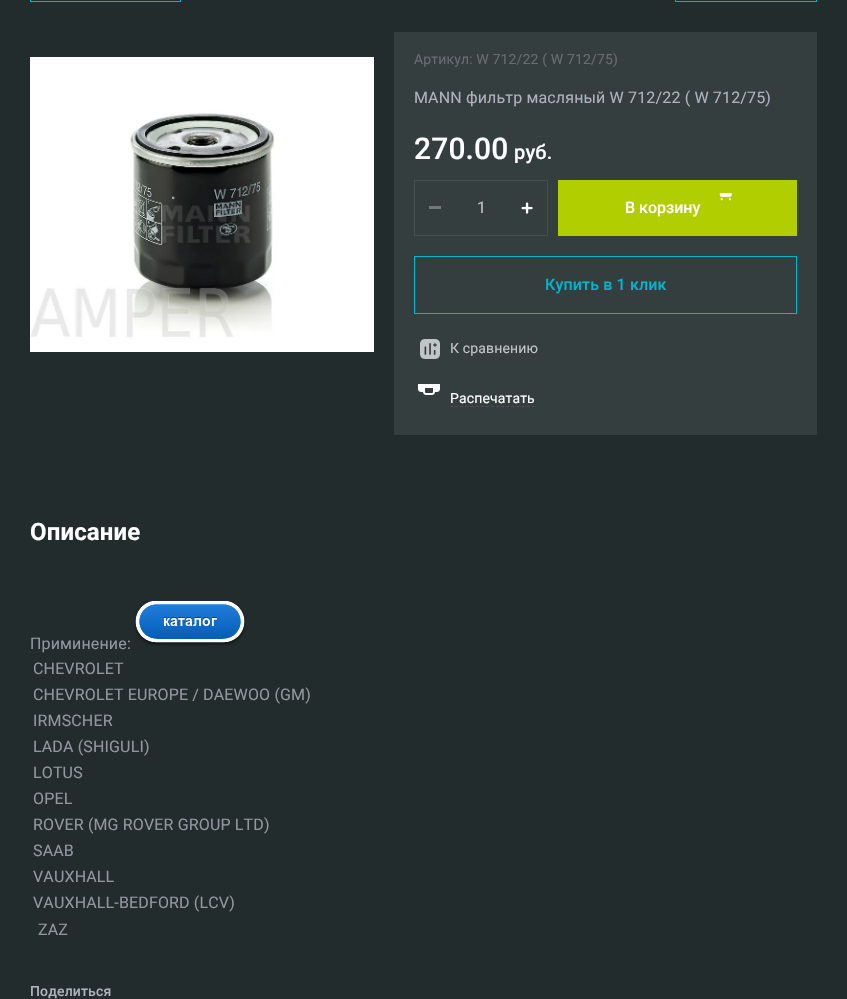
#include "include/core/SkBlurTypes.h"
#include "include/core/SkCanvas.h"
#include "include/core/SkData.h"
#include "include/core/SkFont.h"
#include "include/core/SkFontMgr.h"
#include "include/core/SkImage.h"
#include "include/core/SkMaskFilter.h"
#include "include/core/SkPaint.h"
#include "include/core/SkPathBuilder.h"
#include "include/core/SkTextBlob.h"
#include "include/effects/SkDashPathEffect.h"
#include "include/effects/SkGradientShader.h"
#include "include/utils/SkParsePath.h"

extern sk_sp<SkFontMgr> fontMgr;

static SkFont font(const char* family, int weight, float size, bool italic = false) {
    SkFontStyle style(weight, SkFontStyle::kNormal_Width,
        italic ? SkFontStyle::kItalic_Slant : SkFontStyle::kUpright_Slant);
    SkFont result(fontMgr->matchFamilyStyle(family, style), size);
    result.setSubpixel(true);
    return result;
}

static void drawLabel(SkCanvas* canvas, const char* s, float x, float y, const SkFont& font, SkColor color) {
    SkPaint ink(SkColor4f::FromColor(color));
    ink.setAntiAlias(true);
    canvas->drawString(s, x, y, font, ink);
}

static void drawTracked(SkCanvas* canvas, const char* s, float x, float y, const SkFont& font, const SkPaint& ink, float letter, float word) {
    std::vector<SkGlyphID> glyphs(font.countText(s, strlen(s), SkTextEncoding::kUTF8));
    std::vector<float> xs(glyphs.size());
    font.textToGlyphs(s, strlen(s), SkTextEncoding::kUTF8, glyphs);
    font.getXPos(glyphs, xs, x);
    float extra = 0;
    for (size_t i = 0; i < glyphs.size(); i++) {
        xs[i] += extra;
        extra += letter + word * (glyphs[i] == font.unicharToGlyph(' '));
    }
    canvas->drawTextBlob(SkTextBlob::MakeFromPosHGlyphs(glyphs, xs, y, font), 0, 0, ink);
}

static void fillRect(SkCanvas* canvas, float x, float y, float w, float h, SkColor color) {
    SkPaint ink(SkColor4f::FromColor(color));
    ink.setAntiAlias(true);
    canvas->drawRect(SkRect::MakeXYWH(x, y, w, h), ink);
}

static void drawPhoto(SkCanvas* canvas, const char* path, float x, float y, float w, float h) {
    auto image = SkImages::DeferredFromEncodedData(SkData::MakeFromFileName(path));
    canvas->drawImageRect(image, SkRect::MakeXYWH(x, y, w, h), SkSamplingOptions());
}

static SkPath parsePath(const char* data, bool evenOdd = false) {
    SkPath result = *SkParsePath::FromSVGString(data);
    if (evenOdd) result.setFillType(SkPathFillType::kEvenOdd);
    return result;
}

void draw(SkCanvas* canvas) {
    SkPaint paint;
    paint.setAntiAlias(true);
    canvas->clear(0xFF232C2D);
    paint.setStroke(true);
    paint.setStrokeWidth(1);
    paint.setColor(0xFF02B5CD);
    canvas->drawRect(SkRect::MakeXYWH(30.5f, -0.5f, 150, 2), paint);
    canvas->drawRect(SkRect::MakeXYWH(675.5f, -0.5f, 141, 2), paint);
    drawPhoto(canvas, "assets/img1.png", 30, 57, 344, 295);
    fillRect(canvas, 394, 32, 423, 403, 0xFF343E3F);
    SkFont font1 = font("Roboto", 400, 14);
    paint.setStroke(false);
    paint.setColor(0xFF666C71);
    drawTracked(canvas, "Артикул: W 712/22 ( W 712/75)", 414, 64, font1, paint, 0.15f, 0);
    SkFont font2 = font("Roboto", 400, 16);
    paint.setColor(0xFFB0B1BC);
    drawTracked(canvas, "MANN фильтр масляный W 712/22 ( W 712/75)", 414, 103, font2, paint, 0.15f, 0);
    SkFont font3 = font("Roboto", 500, 30);
    paint.setColor(0xFFFFFFFF);
    drawTracked(canvas, "270.00", 414, 159, font3, paint, 0.15f, 0);
    SkFont font4 = font("Roboto", 500, 20);
    drawTracked(canvas, "руб.", 514, 159, font4, paint, 0.15f, 0);
    paint.setStroke(true);
    paint.setColor(0xFF444D4F);
    canvas->drawRect(SkRect::MakeXYWH(414.5f, 180.5f, 133, 55), paint);
    fillRect(canvas, 429, 206, 12, 3, 0xFF717879);
    drawLabel(canvas, "1", 477, 213, font2, 0xFFC2C5C5);
    drawPhoto(canvas, "assets/img2.png", 521, 202, 12, 12);
    fillRect(canvas, 558, 180, 239, 56, 0xFFB1CF00);
    drawPhoto(canvas, "assets/img3.png", 719, 193, 13, 8);
    SkFont font5 = font("Roboto", 500, 16);
    drawLabel(canvas, "В корзину", 625, 213, font5, 0xFFFFFFFF);
    paint.setColor(0xFF02B5CD);
    canvas->drawRect(SkRect::MakeXYWH(414.5f, 256.5f, 382, 57), paint);
    paint.setStroke(false);
    drawTracked(canvas, "Купить в 1 клик", 545, 290, font5, paint, 0.15f, 0);
    drawPhoto(canvas, "assets/img4.png", 420, 339, 20, 20);
    paint.setColor(0xFFC2C5C5);
    drawTracked(canvas, "К сравнению", 450, 353, font1, paint, 0.15f, 0);
    drawPhoto(canvas, "assets/img5.png", 418, 384, 22, 11);
    paint.setColor(0xFFFFFFFF);
    drawTracked(canvas, "Распечатать", 450, 403, font1, paint, 0.15f, 0);
    paint.setStroke(true);
    paint.setColor(0xFF475052);
    paint.setPathEffect(SkDashPathEffect::Make({{3, 2.12f}}, 0));
    canvas->drawPath(parsePath("M450 406.5H535"), paint);
    paint.setPathEffect(nullptr);
    SkFont font6 = font("Roboto", 700, 24);
    paint.setStroke(false);
    paint.setColor(0xFFFFFFFF);
    drawTracked(canvas, "Описание", 30, 540, font6, paint, 0.15f, 0);
    paint.setColor(0xFF94969F);
    drawTracked(canvas, "Приминение:", 30, 649, font2, paint, 0.15f, 0);
    drawPhoto(canvas, "assets/img6.png", 134, 601, 112, 45);
    drawTracked(canvas, "CHEVROLET", 33, 674, font2, paint, 0.15f, 0);
    drawTracked(canvas, "CHEVROLET EUROPE / DAEWOO (GM)", 33, 700, font2, paint, 0.15f, 0);
    drawTracked(canvas, "IRMSCHER", 33, 726, font2, paint, 0.15f, 0);
    drawTracked(canvas, "LADA (SHIGULI)", 33, 752, font2, paint, 0.15f, 0);
    drawTracked(canvas, "LOTUS", 33, 778, font2, paint, 0.15f, 0);
    drawTracked(canvas, "OPEL", 33, 804, font2, paint, 0.15f, 0);
    drawTracked(canvas, "ROVER (MG ROVER GROUP LTD)", 33, 830, font2, paint, 0.15f, 0);
    drawTracked(canvas, "SAAB", 33, 856, font2, paint, 0.15f, 0);
    drawTracked(canvas, "VAUXHALL", 33, 882, font2, paint, 0.15f, 0);
    drawTracked(canvas, "VAUXHALL-BEDFORD (LCV)", 33, 908, font2, paint, 0.15f, 0);
    drawTracked(canvas, "ZAZ", 38, 935, font2, paint, 0.15f, 0);
    SkFont font7 = font("Roboto", 500, 14);
    paint.setColor(0xFFB0B1BC);
    drawTracked(canvas, "Поделиться", 30, 996, font7, paint, 0.15f, 0);
}
